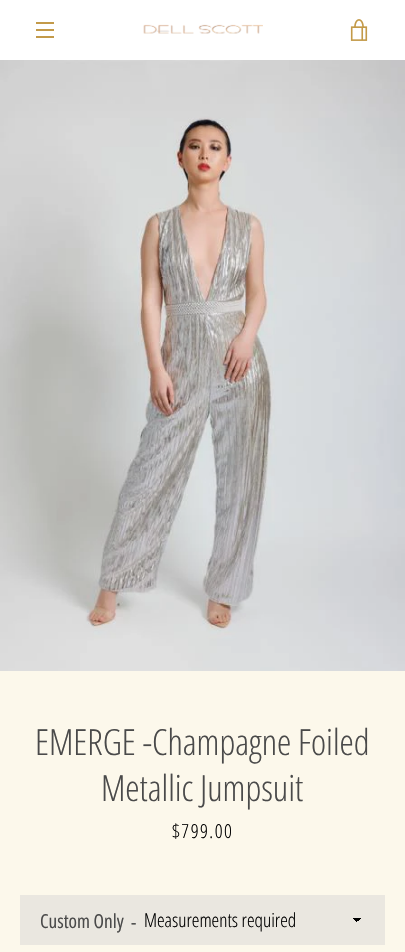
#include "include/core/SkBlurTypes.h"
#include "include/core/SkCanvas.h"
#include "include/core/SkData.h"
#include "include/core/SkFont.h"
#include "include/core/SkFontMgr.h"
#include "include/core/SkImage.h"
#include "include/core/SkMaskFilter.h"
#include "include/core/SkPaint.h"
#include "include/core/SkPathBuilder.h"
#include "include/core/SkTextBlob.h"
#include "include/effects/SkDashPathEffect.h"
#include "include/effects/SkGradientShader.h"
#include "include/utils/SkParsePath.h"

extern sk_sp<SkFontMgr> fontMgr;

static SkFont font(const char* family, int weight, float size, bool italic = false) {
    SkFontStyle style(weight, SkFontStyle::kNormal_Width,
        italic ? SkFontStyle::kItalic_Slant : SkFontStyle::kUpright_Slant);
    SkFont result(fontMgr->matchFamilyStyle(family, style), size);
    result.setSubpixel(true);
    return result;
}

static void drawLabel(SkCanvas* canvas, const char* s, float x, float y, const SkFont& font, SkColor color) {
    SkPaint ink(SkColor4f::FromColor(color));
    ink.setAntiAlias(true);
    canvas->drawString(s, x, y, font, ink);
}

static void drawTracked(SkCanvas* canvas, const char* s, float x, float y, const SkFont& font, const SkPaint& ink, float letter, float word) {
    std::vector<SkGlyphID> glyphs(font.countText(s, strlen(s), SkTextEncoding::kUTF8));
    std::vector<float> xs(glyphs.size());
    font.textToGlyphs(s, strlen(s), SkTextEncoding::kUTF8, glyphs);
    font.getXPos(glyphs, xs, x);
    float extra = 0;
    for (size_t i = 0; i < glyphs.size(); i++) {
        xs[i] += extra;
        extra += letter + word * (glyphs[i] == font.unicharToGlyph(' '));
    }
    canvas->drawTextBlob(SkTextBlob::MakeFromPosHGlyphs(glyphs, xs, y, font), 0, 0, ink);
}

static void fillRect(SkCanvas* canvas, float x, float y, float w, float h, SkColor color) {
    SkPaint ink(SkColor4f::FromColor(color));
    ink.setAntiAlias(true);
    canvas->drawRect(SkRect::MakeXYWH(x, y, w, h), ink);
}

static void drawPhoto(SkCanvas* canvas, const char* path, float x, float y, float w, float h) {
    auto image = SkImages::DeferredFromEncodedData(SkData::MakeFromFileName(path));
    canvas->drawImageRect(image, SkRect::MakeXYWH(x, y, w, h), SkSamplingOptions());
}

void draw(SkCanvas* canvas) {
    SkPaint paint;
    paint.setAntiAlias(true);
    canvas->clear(0xFFFCF8EB);
    fillRect(canvas, 0, 0, 405, 60, 0xFFFFFFFF);
    fillRect(canvas, 36, 22, 18, 2, 0xFFC39A49);
    fillRect(canvas, 36, 29, 18, 2, 0xFFC39A49);
    fillRect(canvas, 36, 36, 18, 2, 0xFFC39A49);
    drawPhoto(canvas, "assets/img1.png", 143, 24, 120, 10);
    drawPhoto(canvas, "assets/img2.png", 350, 19, 18, 22);
    drawPhoto(canvas, "assets/img3.png", 0, 60, 405, 611);
    SkFont font1 = font("Open Sans Condensed", 300, 36);
    drawLabel(canvas, "EMERGE -Champagne Foiled", 35, 755, font1, 0xFF4A4A4A);
    drawLabel(canvas, "Metallic Jumpsuit", 101, 801, font1, 0xFF4A4A4A);
    SkFont font2 = font("Open Sans Condensed", 300, 19.25f);
    paint.setColor(0xFF000000);
    drawTracked(canvas, "$799.00", 172, 838, font2, paint, 1.5f, 0);
    fillRect(canvas, 20, 895, 365, 50, 0xFFEAE7E0);
    SkFont font3 = font("Open Sans Condensed", 400, 19.25f);
    drawLabel(canvas, "Custom Only", 40, 928, font3, 0xFF4A4A4A);
    drawLabel(canvas, "-", 131, 929, font3, 0xFF4A4A4A);
    {
        const SkColor colors[] = {0xFF000000, 0xFFEAE7E0};
        const float stops[] = {0.5f, 0.5f};
        const SkPoint ends[] = {{357, 918}, {361, 922}};
        paint.setShader(SkGradientShader::MakeLinear(ends, colors, stops, 2, SkTileMode::kClamp));
        paint.setAlpha(255);
    }
    canvas->drawRect(SkRect::MakeXYWH(357, 918, 4, 3), paint);
    {
        const SkColor colors[] = {0xFFEAE7E0, 0xFF000000};
        const float stops[] = {0.5f, 0.5f};
        const SkPoint ends[] = {{353, 922}, {357, 918}};
        paint.setShader(SkGradientShader::MakeLinear(ends, colors, stops, 2, SkTileMode::kClamp));
        paint.setAlpha(255);
    }
    canvas->drawRect(SkRect::MakeXYWH(353, 918, 4, 4), paint);
    drawLabel(canvas, "Measurements required", 144, 927, font2, 0xFF000000);
}
